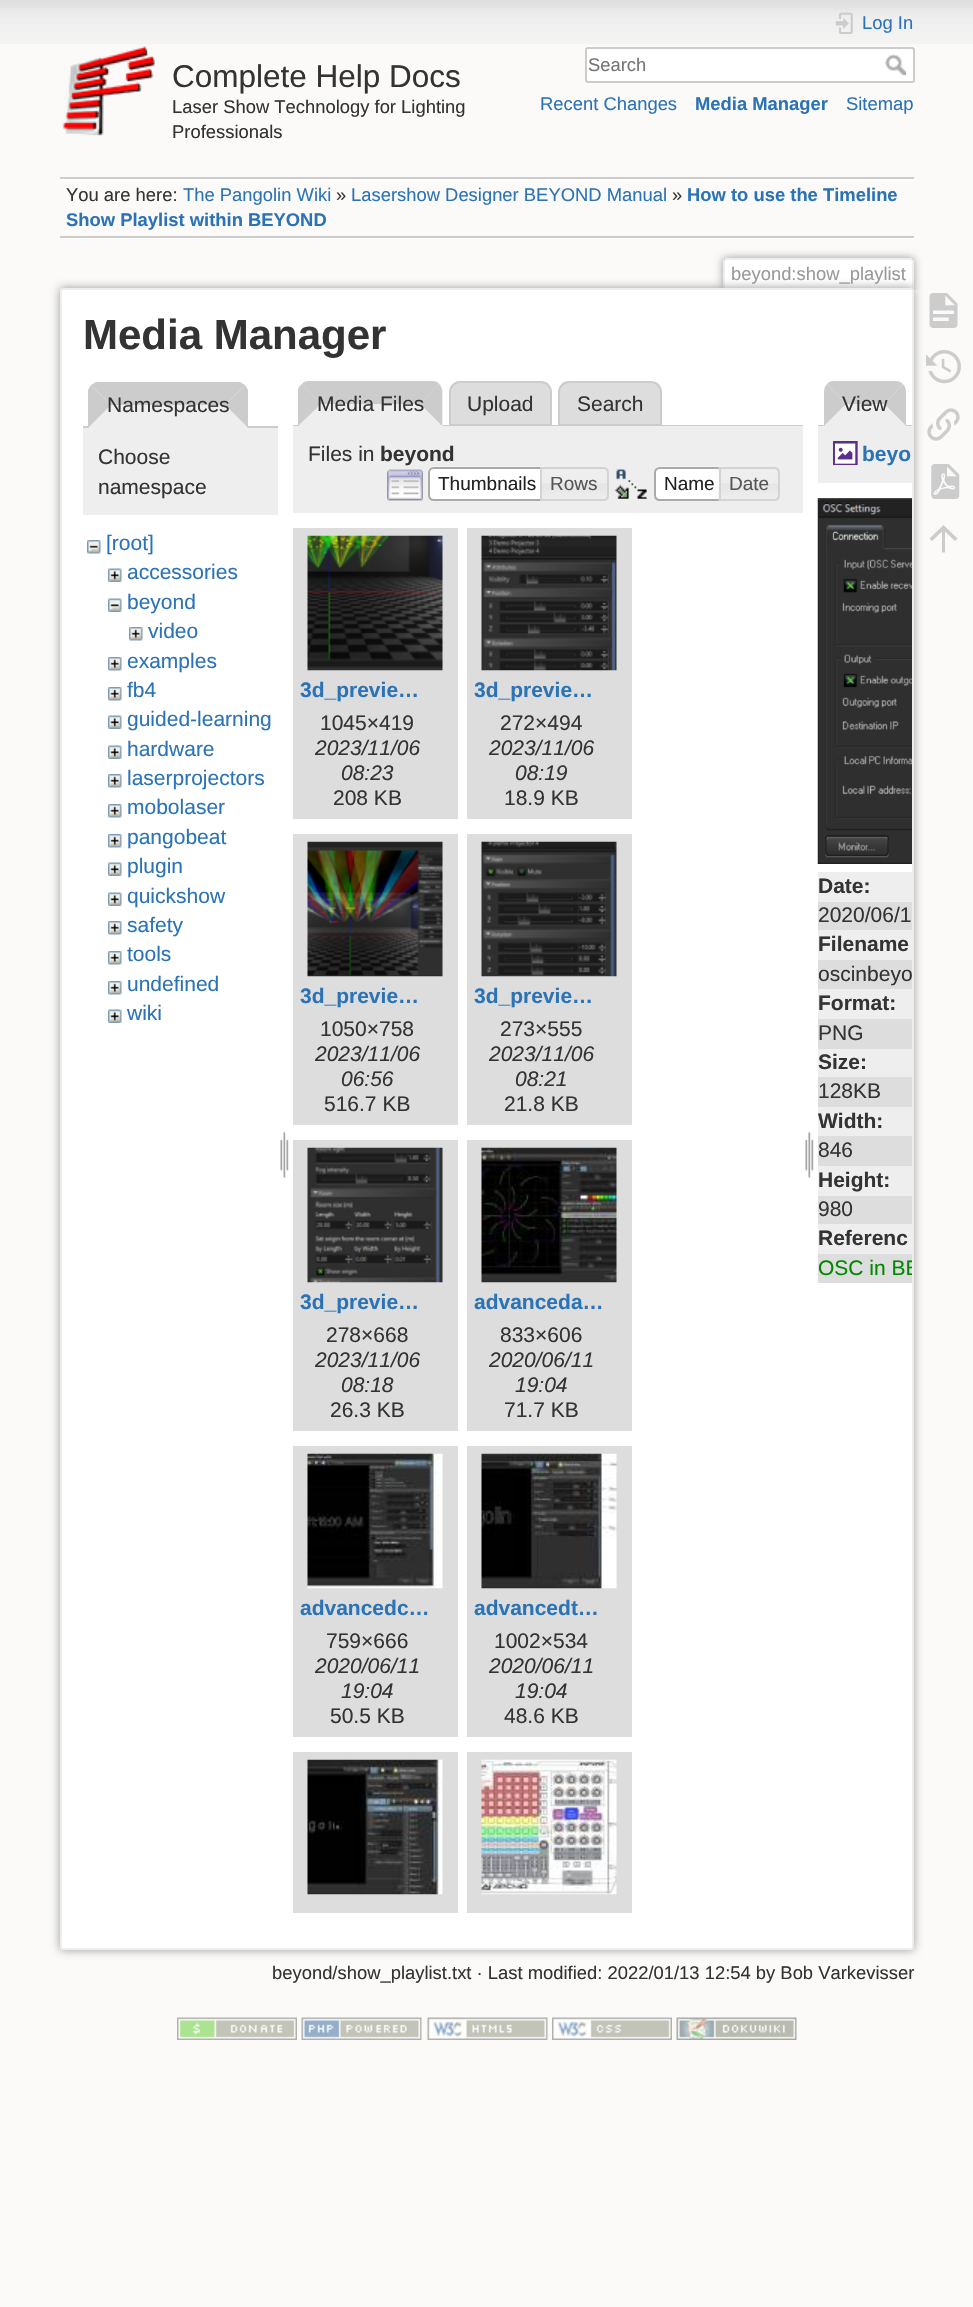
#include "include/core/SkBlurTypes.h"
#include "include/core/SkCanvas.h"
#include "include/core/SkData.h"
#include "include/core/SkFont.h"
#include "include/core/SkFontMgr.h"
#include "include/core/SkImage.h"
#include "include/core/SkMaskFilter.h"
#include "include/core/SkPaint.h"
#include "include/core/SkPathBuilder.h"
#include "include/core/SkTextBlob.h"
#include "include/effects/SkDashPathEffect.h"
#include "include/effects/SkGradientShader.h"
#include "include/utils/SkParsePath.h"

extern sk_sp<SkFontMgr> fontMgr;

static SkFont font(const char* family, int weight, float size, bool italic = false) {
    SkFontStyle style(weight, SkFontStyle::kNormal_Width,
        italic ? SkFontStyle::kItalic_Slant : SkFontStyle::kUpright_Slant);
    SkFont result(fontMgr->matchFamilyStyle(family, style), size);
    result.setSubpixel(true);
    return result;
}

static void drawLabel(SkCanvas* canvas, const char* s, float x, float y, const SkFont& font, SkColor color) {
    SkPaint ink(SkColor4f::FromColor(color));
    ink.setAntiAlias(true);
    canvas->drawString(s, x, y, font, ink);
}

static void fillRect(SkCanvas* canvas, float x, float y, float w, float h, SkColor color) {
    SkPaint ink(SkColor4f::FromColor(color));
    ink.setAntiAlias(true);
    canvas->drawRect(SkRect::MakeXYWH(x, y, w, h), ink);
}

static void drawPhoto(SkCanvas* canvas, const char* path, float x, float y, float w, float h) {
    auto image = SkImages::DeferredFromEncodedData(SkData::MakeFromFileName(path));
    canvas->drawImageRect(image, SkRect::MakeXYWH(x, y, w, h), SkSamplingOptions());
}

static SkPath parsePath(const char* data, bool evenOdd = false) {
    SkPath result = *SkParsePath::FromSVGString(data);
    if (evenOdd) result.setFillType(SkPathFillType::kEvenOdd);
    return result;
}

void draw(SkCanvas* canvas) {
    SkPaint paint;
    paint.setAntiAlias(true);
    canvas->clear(0xFFFBFAF9);
    drawPhoto(canvas, "assets/img1.png", 0, 0, 973, 44);
    drawPhoto(canvas, "assets/img2.png", 62, 46, 93, 90);
    SkFont font1 = font("Liberation Sans", 400, 31.5f);
    drawLabel(canvas, "Complete Help Docs", 172, 87, font1, 0xFF333333);
    SkFont font2 = font("Liberation Sans", 400, 18.4f);
    drawLabel(canvas, "Laser Show Technology for Lighting", 172, 113, font2, 0xFF333333);
    drawLabel(canvas, "Professionals", 172, 138, font2, 0xFF333333);
    drawPhoto(canvas, "assets/img3.png", 835, 12, 18, 22);
    drawLabel(canvas, "Log In", 862, 29, font2, 0xFF2B73B7);
    paint.setColor(0xFFFFFFFF);
    canvas->drawRoundRect(SkRect::MakeXYWH(586, 48, 328, 34), 2, 2, paint);
    paint.setStroke(true);
    paint.setStrokeWidth(2);
    paint.setColor(0xFFCCCCCC);
    canvas->drawRoundRect(SkRect::MakeXYWH(586, 48, 328, 34), 2, 2, paint);
    drawLabel(canvas, "Search", 588, 71, font2, 0xFF757575);
    drawPhoto(canvas, "assets/img4.png", 885, 54, 21, 21);
    drawLabel(canvas, "Recent Changes", 540, 110, font2, 0xFF2B73B7);
    SkFont font3 = font("Liberation Sans", 700, 18.4f);
    drawLabel(canvas, "Media Manager", 695, 110, font3, 0xFF2B73B7);
    drawLabel(canvas, "Sitemap", 846, 110, font2, 0xFF2B73B7);
    fillRect(canvas, 60, 177, 854, 2, 0xFFCCCCCC);
    fillRect(canvas, 60, 238, 854, 1, 0xFFFFFFFF);
    fillRect(canvas, 60, 179, 854, 2, 0xFFFFFFFF);
    fillRect(canvas, 60, 236, 854, 2, 0xFFCCCCCC);
    drawLabel(canvas, "You are here:", 66, 201, font2, 0xFF333333);
    drawLabel(canvas, "The Pangolin Wiki", 183, 201, font2, 0xFF2B73B7);
    drawLabel(canvas, "»", 336, 201, font2, 0xFF333333);
    drawLabel(canvas, "Lasershow Designer BEYOND Manual", 351, 201, font2, 0xFF2B73B7);
    drawLabel(canvas, "»", 672, 201, font2, 0xFF333333);
    drawLabel(canvas, "How to use the Timeline", 687, 201, font3, 0xFF2B73B7);
    drawLabel(canvas, "Show Playlist within BEYOND", 66, 226, font3, 0xFF2B73B7);
    canvas->save();
    canvas->clipRect(SkRect::MakeXYWH(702, 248, 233, 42));
    paint.setStroke(false);
    paint.setColor(0xFF999999);
    paint.setMaskFilter(SkMaskFilter::MakeBlur(kNormal_SkBlurStyle, 4.5f));
    canvas->drawRoundRect(SkRect::MakeXYWH(723, 258, 191, 32), 3, 3, paint);
    paint.setMaskFilter(nullptr);
    canvas->restore();
    paint.setColor(0xFFFFFFFF);
    canvas->drawPath(parsePath("M726.5 260H910.5C911.5 260 912 260.5 912 261.5V290H725V261.5C725 260.5 725.5 260 726.5 260Z"), paint);
    fillRect(canvas, 725, 258, 187, 2, 0xFFEEEEEE);
    fillRect(canvas, 912, 260, 2, 30, 0xFFEEEEEE);
    fillRect(canvas, 723, 260, 2, 30, 0xFFEEEEEE);
    drawLabel(canvas, "beyond:show_playlist", 731, 280, font2, 0xFF999999);
    paint.setColor(0xFF999999);
    paint.setMaskFilter(SkMaskFilter::MakeBlur(kNormal_SkBlurStyle, 5));
    canvas->drawRoundRect(SkRect::MakeXYWH(60, 288, 854, 1662), 3, 3, paint);
    paint.setMaskFilter(nullptr);
    paint.setColor(0xFFFFFFFF);
    canvas->drawRoundRect(SkRect::MakeXYWH(61, 289, 852, 1660), 2, 2, paint);
    paint.setStroke(true);
    paint.setColor(0xFFEEEEEE);
    canvas->drawRoundRect(SkRect::MakeXYWH(61, 289, 852, 1660), 2, 2, paint);
    SkFont font4 = font("Liberation Sans", 700, 42);
    drawLabel(canvas, "Media Manager", 83, 349, font4, 0xFF333333);
    paint.setStroke(false);
    paint.setColor(0xFFCCCCCC);
    canvas->drawPath(parsePath("M240 382H96L91 385L111 405H225L245 385Z"), paint);
    fillRect(canvas, 83, 426, 195, 2, 0xFFCCCCCC);
    canvas->drawPath(parsePath("M245 385L225 405L248 428V390C247 388 246 387 245 385Z"), paint);
    paint.setColor(0xFFEEEEEE);
    canvas->drawPath(parsePath("M248 428L225 405H111L88 428Z"), paint);
    paint.setColor(0xFFCCCCCC);
    canvas->drawPath(parsePath("M88 428L111 405L91 385L88 390Z"), paint);
    SkFont font5 = font("Liberation Sans", 400, 21);
    drawLabel(canvas, "Namespaces", 107, 412, font5, 0xFF333333);
    fillRect(canvas, 83, 428, 195, 87, 0xFFEEEEEE);
    drawLabel(canvas, "Choose", 98, 464, font5, 0xFF333333);
    drawLabel(canvas, "namespace", 98, 494, font5, 0xFF333333);
    drawPhoto(canvas, "assets/img5.png", 87, 540, 14, 14);
    drawLabel(canvas, "[root]", 106, 550, font5, 0xFF2B73B7);
    drawPhoto(canvas, "assets/img6.png", 108, 568, 14, 14);
    drawLabel(canvas, "accessories", 127, 579, font5, 0xFF2B73B7);
    drawPhoto(canvas, "assets/img7.png", 108, 598, 14, 14);
    drawLabel(canvas, "beyond", 127, 609, font5, 0xFF2B73B7);
    drawPhoto(canvas, "assets/img8.png", 129, 627, 14, 14);
    drawLabel(canvas, "video", 148, 638, font5, 0xFF2B73B7);
    drawPhoto(canvas, "assets/img8.png", 108, 657, 14, 14);
    drawLabel(canvas, "examples", 127, 668, font5, 0xFF2B73B7);
    drawPhoto(canvas, "assets/img8.png", 108, 687, 14, 14);
    drawLabel(canvas, "fb4", 127, 697, font5, 0xFF2B73B7);
    drawPhoto(canvas, "assets/img6.png", 108, 715, 14, 14);
    drawLabel(canvas, "guided-learning", 127, 726, font5, 0xFF2B73B7);
    drawPhoto(canvas, "assets/img6.png", 108, 745, 14, 14);
    drawLabel(canvas, "hardware", 127, 756, font5, 0xFF2B73B7);
    drawPhoto(canvas, "assets/img8.png", 108, 774, 14, 14);
    drawLabel(canvas, "laserprojectors", 127, 785, font5, 0xFF2B73B7);
    drawPhoto(canvas, "assets/img8.png", 108, 804, 14, 14);
    drawLabel(canvas, "mobolaser", 127, 814, font5, 0xFF2B73B7);
    drawPhoto(canvas, "assets/img8.png", 108, 834, 14, 14);
    drawLabel(canvas, "pangobeat", 127, 844, font5, 0xFF2B73B7);
    drawPhoto(canvas, "assets/img6.png", 108, 862, 14, 14);
    drawLabel(canvas, "plugin", 127, 873, font5, 0xFF2B73B7);
    drawPhoto(canvas, "assets/img6.png", 108, 892, 14, 14);
    drawLabel(canvas, "quickshow", 127, 903, font5, 0xFF2B73B7);
    drawPhoto(canvas, "assets/img8.png", 108, 921, 14, 14);
    drawLabel(canvas, "safety", 127, 932, font5, 0xFF2B73B7);
    drawPhoto(canvas, "assets/img8.png", 108, 951, 14, 14);
    drawLabel(canvas, "tools", 127, 961, font5, 0xFF2B73B7);
    drawPhoto(canvas, "assets/img8.png", 108, 981, 14, 14);
    drawLabel(canvas, "undefined", 127, 991, font5, 0xFF2B73B7);
    drawPhoto(canvas, "assets/img6.png", 108, 1009, 14, 14);
    drawLabel(canvas, "wiki", 127, 1020, font5, 0xFF2B73B7);
    drawPhoto(canvas, "assets/img9.png", 280, 1131, 9, 47);
    paint.setColor(0xFFDDDDDD);
    canvas->drawPath(parsePath("M460 382H541C546.5 382 551 386.5 551 392V425H450V392C450 386.5 454.5 382 460 382Z"), paint);
    paint.setStroke(true);
    paint.setColor(0xFFCCCCCC);
    canvas->drawPath(parsePath("M460 382H541C546.5 382 551 386.5 551 392V425H450V392C450 386.5 454.5 382 460 382Z"), paint);
    paint.setStroke(false);
    paint.setColor(0xFFDDDDDD);
    canvas->drawPath(parsePath("M569 382H651C656.5 382 661 386.5 661 392V425H559V392C559 386.5 563.5 382 569 382Z"), paint);
    paint.setStroke(true);
    paint.setColor(0xFFCCCCCC);
    canvas->drawPath(parsePath("M569 382H651C656.5 382 661 386.5 661 392V425H559V392C559 386.5 563.5 382 569 382Z"), paint);
    fillRect(canvas, 293, 425, 510, 1, 0xFFCCCCCC);
    paint.setStroke(false);
    paint.setColor(0xFFEEEEEE);
    canvas->drawPath(parsePath("M310 381H432C438 381 443 386 443 392V426H299V392C299 386 304 381 310 381Z"), paint);
    paint.setColor(0xFFCCCCCC);
    canvas->drawPath(parsePath("M309 381H432C435 381 438 382 439 384L420 404H321L302 384C303 382 306 381 309 381Z"), paint);
    canvas->drawPath(parsePath("M439 384L420 404L442 426V392C442 389 441 386 439 384Z"), paint);
    paint.setColor(0xFFEEEEEE);
    canvas->drawPath(parsePath("M442 426L420 404H321L298 426Z"), paint);
    paint.setColor(0xFFCCCCCC);
    canvas->drawPath(parsePath("M298 426L321 404L302 384C300 385 299 387 298 389Z"), paint);
    drawLabel(canvas, "Media Files", 317, 411, font5, 0xFF333333);
    drawLabel(canvas, "Upload", 467, 411, font5, 0xFF333333);
    drawLabel(canvas, "Search", 577, 411, font5, 0xFF333333);
    fillRect(canvas, 293, 426, 510, 87, 0xFFEEEEEE);
    drawLabel(canvas, "Files in", 308, 461, font5, 0xFF333333);
    SkFont font6 = font("Liberation Sans", 700, 21);
    drawLabel(canvas, "beyond", 380, 461, font6, 0xFF333333);
    drawPhoto(canvas, "assets/img10.png", 387, 469, 36, 32);
    drawPhoto(canvas, "assets/img11.png", 427, 466, 120, 35);
    paint.setStroke(true);
    paint.setColor(0xFFAAAAAA);
    canvas->drawPath(parsePath("M434 468H547V500H434C431 500 429 498 429 495V473C429 470 431 468 434 468Z"), paint);
    SkFont font7 = font("Liberation Sans", 400, 19);
    drawLabel(canvas, "Thumbnails", 438, 490, font7, 0xFF212121);
    drawPhoto(canvas, "assets/img12.png", 542, 467, 67, 34);
    paint.setColor(0xFFD3D3D3);
    canvas->drawPath(parsePath("M541 468H603C606 468 608 470 608 473V495C608 498 606 500 603 500H541Z"), paint);
    drawLabel(canvas, "Rows", 550, 490, font7, 0xFF555555);
    drawPhoto(canvas, "assets/img13.png", 614, 469, 33, 30);
    paint.setStroke(false);
    paint.setColor(0xFFFFFFFF);
    canvas->drawPath(parsePath("M660 467H726V501H660C656.5 501 654 498.5 654 495V473C654 469.5 656.5 467 660 467Z"), paint);
    drawPhoto(canvas, "assets/img14.png", 654, 466, 72, 5);
    paint.setStroke(true);
    paint.setColor(0xFFAAAAAA);
    canvas->drawPath(parsePath("M660 468H725V500H660C657 500 655 498 655 495V473C655 470 657 468 660 468Z"), paint);
    drawLabel(canvas, "Name", 664, 490, font7, 0xFF212121);
    drawPhoto(canvas, "assets/img15.png", 718, 467, 62, 34);
    paint.setColor(0xFFD3D3D3);
    canvas->drawPath(parsePath("M720 468H774C777 468 779 470 779 473V495C779 498 777 500 774 500H720Z"), paint);
    drawLabel(canvas, "Date", 729, 490, font7, 0xFF555555);
    fillRect(canvas, 293, 528, 165, 291, 0xFFDDDDDD);
    drawPhoto(canvas, "assets/img16.png", 307, 535, 136, 136);
    drawLabel(canvas, "3d_previe…", 300, 697, font6, 0xFF2B73B7);
    drawLabel(canvas, "1045×419", 320, 730, font5, 0xFF333333);
    SkFont font8 = font("Liberation Sans", 400, 21, true);
    drawLabel(canvas, "2023/11/06", 315, 755, font8, 0xFF333333);
    drawLabel(canvas, "08:23", 341, 780, font8, 0xFF333333);
    drawLabel(canvas, "208 KB", 333, 805, font5, 0xFF333333);
    fillRect(canvas, 467, 528, 165, 291, 0xFFDDDDDD);
    drawPhoto(canvas, "assets/img17.png", 481, 535, 136, 136);
    drawLabel(canvas, "3d_previe…", 474, 697, font6, 0xFF2B73B7);
    drawLabel(canvas, "272×494", 500, 730, font5, 0xFF333333);
    drawLabel(canvas, "2023/11/06", 489, 755, font8, 0xFF333333);
    drawLabel(canvas, "08:19", 515, 780, font8, 0xFF333333);
    drawLabel(canvas, "18.9 KB", 504, 805, font5, 0xFF333333);
    fillRect(canvas, 293, 834, 165, 291, 0xFFDDDDDD);
    drawPhoto(canvas, "assets/img18.png", 307, 841, 136, 136);
    drawLabel(canvas, "3d_previe…", 300, 1003, font6, 0xFF2B73B7);
    drawLabel(canvas, "1050×758", 320, 1036, font5, 0xFF333333);
    drawLabel(canvas, "2023/11/06", 315, 1061, font8, 0xFF333333);
    drawLabel(canvas, "06:56", 341, 1086, font8, 0xFF333333);
    drawLabel(canvas, "516.7 KB", 324, 1111, font5, 0xFF333333);
    fillRect(canvas, 467, 834, 165, 291, 0xFFDDDDDD);
    drawPhoto(canvas, "assets/img19.png", 481, 841, 136, 136);
    drawLabel(canvas, "3d_previe…", 474, 1003, font6, 0xFF2B73B7);
    drawLabel(canvas, "273×555", 500, 1036, font5, 0xFF333333);
    drawLabel(canvas, "2023/11/06", 489, 1061, font8, 0xFF333333);
    drawLabel(canvas, "08:21", 515, 1086, font8, 0xFF333333);
    drawLabel(canvas, "21.8 KB", 504, 1111, font5, 0xFF333333);
    fillRect(canvas, 293, 1140, 165, 291, 0xFFDDDDDD);
    drawPhoto(canvas, "assets/img20.png", 307, 1147, 136, 136);
    drawLabel(canvas, "3d_previe…", 300, 1309, font6, 0xFF2B73B7);
    drawLabel(canvas, "278×668", 326, 1342, font5, 0xFF333333);
    drawLabel(canvas, "2023/11/06", 315, 1367, font8, 0xFF333333);
    drawLabel(canvas, "08:18", 341, 1392, font8, 0xFF333333);
    drawLabel(canvas, "26.3 KB", 330, 1417, font5, 0xFF333333);
    fillRect(canvas, 467, 1140, 165, 291, 0xFFDDDDDD);
    drawPhoto(canvas, "assets/img21.png", 481, 1147, 136, 136);
    drawLabel(canvas, "advanceda…", 474, 1309, font6, 0xFF2B73B7);
    drawLabel(canvas, "833×606", 500, 1342, font5, 0xFF333333);
    drawLabel(canvas, "2020/06/11", 489, 1367, font8, 0xFF333333);
    drawLabel(canvas, "19:04", 515, 1392, font8, 0xFF333333);
    drawLabel(canvas, "71.7 KB", 504, 1417, font5, 0xFF333333);
    fillRect(canvas, 293, 1446, 165, 291, 0xFFDDDDDD);
    drawPhoto(canvas, "assets/img22.png", 307, 1453, 136, 136);
    drawLabel(canvas, "advancedc…", 300, 1615, font6, 0xFF2B73B7);
    drawLabel(canvas, "759×666", 326, 1648, font5, 0xFF333333);
    drawLabel(canvas, "2020/06/11", 315, 1673, font8, 0xFF333333);
    drawLabel(canvas, "19:04", 341, 1698, font8, 0xFF333333);
    drawLabel(canvas, "50.5 KB", 330, 1723, font5, 0xFF333333);
    fillRect(canvas, 467, 1446, 165, 291, 0xFFDDDDDD);
    drawPhoto(canvas, "assets/img23.png", 481, 1453, 136, 136);
    drawLabel(canvas, "advancedt…", 474, 1615, font6, 0xFF2B73B7);
    drawLabel(canvas, "1002×534", 494, 1648, font5, 0xFF333333);
    drawLabel(canvas, "2020/06/11", 489, 1673, font8, 0xFF333333);
    drawLabel(canvas, "19:04", 515, 1698, font8, 0xFF333333);
    drawLabel(canvas, "48.6 KB", 504, 1723, font5, 0xFF333333);
    fillRect(canvas, 293, 1752, 165, 161, 0xFFDDDDDD);
    drawPhoto(canvas, "assets/img24.png", 307, 1759, 136, 136);
    fillRect(canvas, 467, 1752, 165, 161, 0xFFDDDDDD);
    drawPhoto(canvas, "assets/img25.png", 481, 1759, 136, 136);
    drawPhoto(canvas, "assets/img26.png", 805, 1131, 9, 47);
    paint.setStroke(false);
    paint.setColor(0xFFCCCCCC);
    canvas->drawPath(parsePath("M834 381H896C898 381 901 382 903 384L884 404H846L827 384C828 382 831 381 834 381Z"), paint);
    fillRect(canvas, 818, 425, 94, 1, 0xFFCCCCCC);
    canvas->drawPath(parsePath("M903 384L884 404L906 426V392C906 389 905 386 903 384Z"), paint);
    paint.setColor(0xFFEEEEEE);
    canvas->drawPath(parsePath("M906 426H824L846 404H884Z"), paint);
    paint.setColor(0xFFCCCCCC);
    canvas->drawPath(parsePath("M827 384C825 386 824 389 824 392V426L846 404Z"), paint);
    drawLabel(canvas, "View", 842, 411, font5, 0xFF333333);
    fillRect(canvas, 818, 426, 94, 57, 0xFFEEEEEE);
    drawPhoto(canvas, "assets/img27.png", 833, 441, 25, 24);
    drawLabel(canvas, "beyo", 862, 461, font6, 0xFF2B73B7);
    drawPhoto(canvas, "assets/img28.png", 817, 498, 95, 366);
    fillRect(canvas, 818, 872, 94, 30, 0xFFEEEEEE);
    drawLabel(canvas, "Date:", 818, 893, font6, 0xFF333333);
    fillRect(canvas, 818, 902, 94, 28, 0xFFDDDDDD);
    drawLabel(canvas, "2020/06/1", 818, 922, font5, 0xFF333333);
    fillRect(canvas, 818, 930, 94, 30, 0xFFEEEEEE);
    drawLabel(canvas, "Filename", 818, 951, font6, 0xFF333333);
    fillRect(canvas, 818, 960, 94, 29, 0xFFDDDDDD);
    drawLabel(canvas, "oscinbeyo", 818, 981, font5, 0xFF333333);
    fillRect(canvas, 818, 989, 94, 30, 0xFFEEEEEE);
    drawLabel(canvas, "Format:", 818, 1010, font6, 0xFF333333);
    fillRect(canvas, 818, 1019, 94, 30, 0xFFDDDDDD);
    drawLabel(canvas, "PNG", 818, 1040, font5, 0xFF333333);
    fillRect(canvas, 818, 1049, 94, 28, 0xFFEEEEEE);
    drawLabel(canvas, "Size:", 818, 1069, font6, 0xFF333333);
    fillRect(canvas, 818, 1077, 94, 30, 0xFFDDDDDD);
    drawLabel(canvas, "128KB", 818, 1098, font5, 0xFF333333);
    fillRect(canvas, 818, 1107, 94, 29, 0xFFEEEEEE);
    drawLabel(canvas, "Width:", 818, 1128, font6, 0xFF333333);
    fillRect(canvas, 818, 1136, 94, 30, 0xFFDDDDDD);
    drawLabel(canvas, "846", 818, 1157, font5, 0xFF333333);
    fillRect(canvas, 818, 1166, 94, 30, 0xFFEEEEEE);
    drawLabel(canvas, "Height:", 818, 1187, font6, 0xFF333333);
    fillRect(canvas, 818, 1196, 94, 28, 0xFFDDDDDD);
    drawLabel(canvas, "980", 818, 1216, font5, 0xFF333333);
    fillRect(canvas, 818, 1224, 94, 30, 0xFFEEEEEE);
    drawLabel(canvas, "Referenc", 818, 1245, font6, 0xFF333333);
    fillRect(canvas, 818, 1254, 94, 29, 0xFFDDDDDD);
    canvas->save();
    canvas->clipPath(parsePath("M63.5 290H910.5C911.5 290 912 290.5 912 291.5V1947.5C912 1948.5 911.5 1949 910.5 1949H63.5C62.5 1949 62 1948.5 62 1947.5V291.5C62 290.5 62.5 290 63.5 290Z"), true);
    drawLabel(canvas, "OSC in BE", 818, 1275, font5, 0xFF008800);
    canvas->restore();
    drawLabel(canvas, "beyond/show_playlist.txt · Last modified: 2022/01/13 12:54 by Bob Varkevisser", 272, 1979, font2, 0xFF333333);
    drawPhoto(canvas, "assets/img29.png", 929, 293, 29, 35);
    drawPhoto(canvas, "assets/img30.png", 926, 350, 35, 34);
    drawPhoto(canvas, "assets/img31.png", 927, 408, 33, 33);
    drawPhoto(canvas, "assets/img32.png", 931, 464, 29, 35);
    canvas->drawPath(parsePath("M945 552.5H942V531.5L932 541L929.5 538.5L943.5 525L957.5 538.5L955 541L945 531.5Z"), paint);
    drawPhoto(canvas, "assets/img33.png", 177, 2017, 120, 23);
    drawPhoto(canvas, "assets/img34.png", 301, 2017, 121, 23);
    drawPhoto(canvas, "assets/img35.png", 427, 2017, 121, 23);
    drawPhoto(canvas, "assets/img36.png", 552, 2017, 120, 23);
    drawPhoto(canvas, "assets/img37.png", 676, 2017, 121, 23);
}
